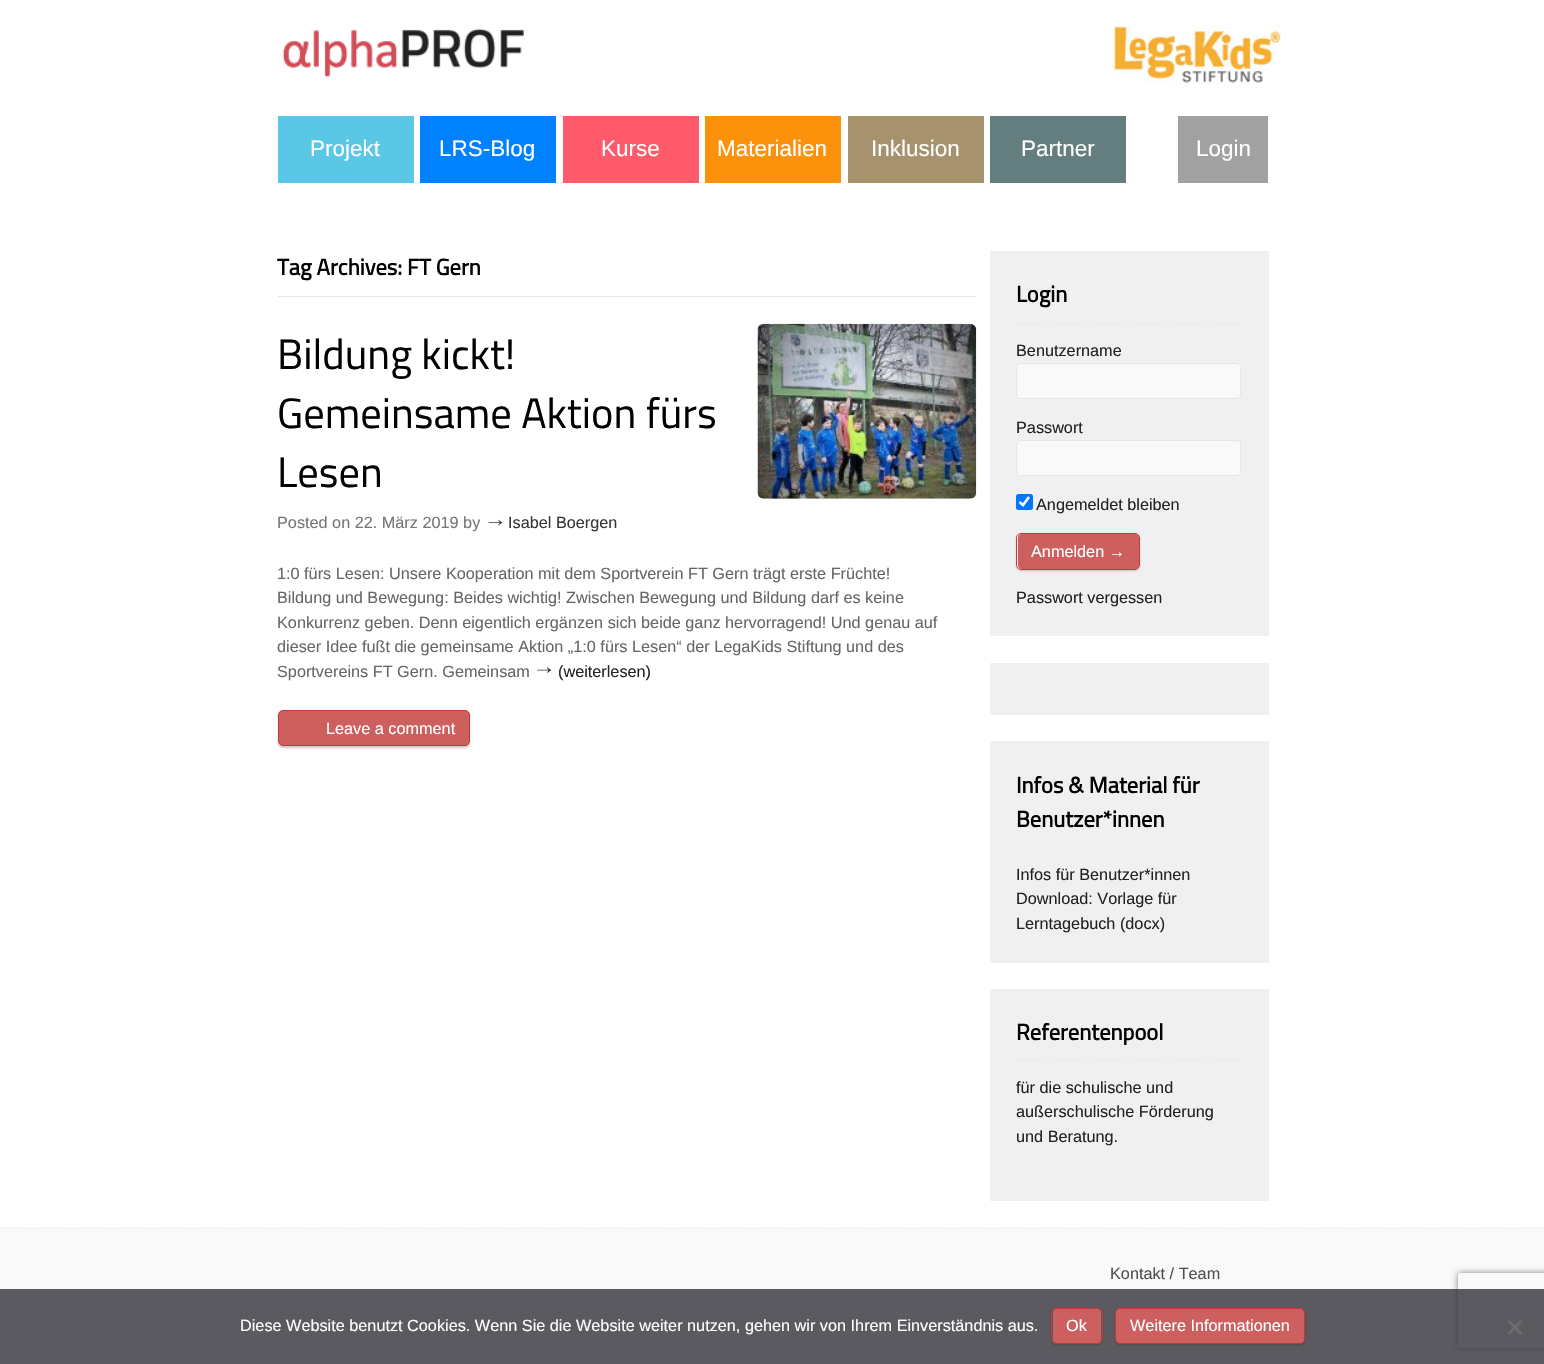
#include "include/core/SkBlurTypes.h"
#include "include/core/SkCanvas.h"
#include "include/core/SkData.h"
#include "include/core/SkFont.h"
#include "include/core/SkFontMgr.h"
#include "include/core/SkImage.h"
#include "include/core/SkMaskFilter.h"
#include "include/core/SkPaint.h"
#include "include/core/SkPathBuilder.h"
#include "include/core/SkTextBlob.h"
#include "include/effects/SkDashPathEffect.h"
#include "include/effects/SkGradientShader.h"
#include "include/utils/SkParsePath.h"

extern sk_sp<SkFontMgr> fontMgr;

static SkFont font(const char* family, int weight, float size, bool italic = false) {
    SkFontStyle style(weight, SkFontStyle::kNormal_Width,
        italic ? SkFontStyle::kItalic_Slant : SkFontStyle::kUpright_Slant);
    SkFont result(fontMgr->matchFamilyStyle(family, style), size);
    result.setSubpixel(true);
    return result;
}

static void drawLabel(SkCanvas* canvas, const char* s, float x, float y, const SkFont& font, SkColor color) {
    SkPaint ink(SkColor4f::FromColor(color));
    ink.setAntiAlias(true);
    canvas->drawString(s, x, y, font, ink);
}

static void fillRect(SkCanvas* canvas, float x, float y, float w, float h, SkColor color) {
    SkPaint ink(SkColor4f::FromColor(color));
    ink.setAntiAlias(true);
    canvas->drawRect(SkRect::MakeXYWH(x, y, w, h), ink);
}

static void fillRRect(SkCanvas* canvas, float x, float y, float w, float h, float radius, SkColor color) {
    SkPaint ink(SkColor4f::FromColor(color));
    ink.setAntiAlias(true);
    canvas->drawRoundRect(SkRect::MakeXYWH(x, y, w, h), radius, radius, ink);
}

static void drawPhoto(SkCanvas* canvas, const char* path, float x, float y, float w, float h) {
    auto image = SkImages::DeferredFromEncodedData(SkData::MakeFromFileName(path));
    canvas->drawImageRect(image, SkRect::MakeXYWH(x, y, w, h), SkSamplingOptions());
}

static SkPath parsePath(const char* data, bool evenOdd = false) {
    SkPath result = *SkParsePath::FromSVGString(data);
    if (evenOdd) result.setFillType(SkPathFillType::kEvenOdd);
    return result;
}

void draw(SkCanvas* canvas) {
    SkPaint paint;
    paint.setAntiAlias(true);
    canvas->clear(0xFFFFFFFF);
    drawPhoto(canvas, "assets/img1.png", 282, 28, 242, 49);
    drawPhoto(canvas, "assets/img2.png", 1112, 25, 170, 59);
    fillRect(canvas, 278, 116, 136, 67, 0xFF5AC7E6);
    SkFont font1 = font("Liberation Sans", 400, 22.5f);
    drawLabel(canvas, "Projekt", 310, 156, font1, 0xFFFFFFFF);
    fillRect(canvas, 420, 116, 136, 67, 0xFF0081FF);
    drawLabel(canvas, "LRS-Blog", 439, 156, font1, 0xFFFFFFFF);
    fillRect(canvas, 563, 116, 136, 67, 0xFFFF5A6A);
    drawLabel(canvas, "Kurse", 601, 156, font1, 0xFFFFFFFF);
    fillRect(canvas, 705, 116, 136, 67, 0xFFFC920B);
    drawLabel(canvas, "Materialien", 717, 156, font1, 0xFFFFFFFF);
    fillRect(canvas, 848, 116, 136, 67, 0xFFA6926D);
    drawLabel(canvas, "Inklusion", 871, 156, font1, 0xFFFFFFFF);
    fillRect(canvas, 990, 116, 136, 67, 0xFF647E7F);
    drawLabel(canvas, "Partner", 1021, 156, font1, 0xFFFFFFFF);
    fillRect(canvas, 1178, 116, 90, 67, 0xFFA1A1A1);
    drawLabel(canvas, "Login", 1196, 156, font1, 0xFFFFFFFF);
    fillRect(canvas, 278, 296, 698, 1, 0xFFE6E6E6);
    SkFont font2 = font("Titillium Web", 700, 22.5f);
    drawLabel(canvas, "Tag Archives: FT Gern", 277, 275, font2, 0xFF020202);
    SkFont font3 = font("Titillium Web", 400, 42.5f);
    drawLabel(canvas, "Bildung kickt!", 277, 369, font3, 0xFF020202);
    drawLabel(canvas, "Gemeinsame Aktion fürs", 277, 428, font3, 0xFF020202);
    drawLabel(canvas, "Lesen", 277, 487, font3, 0xFF020202);
    SkFont font4 = font("Liberation Sans", 400, 16.25f);
    drawLabel(canvas, "Posted on 22. März 2019 by", 277, 528, font4, 0xFF757575);
    drawPhoto(canvas, "assets/img3.png", 488, 519, 15, 7);
    drawLabel(canvas, "Isabel Boergen", 508, 528, font4, 0xFF353535);
    drawPhoto(canvas, "assets/img4.png", 757, 323, 220, 176);
    drawLabel(canvas, "1:0 fürs Lesen: Unsere Kooperation mit dem Sportverein FT Gern trägt erste Früchte!", 277, 579, font4, 0xFF666666);
    drawLabel(canvas, "Bildung und Bewegung: Beides wichtig! Zwischen Bewegung und Bildung darf es keine", 277, 603, font4, 0xFF666666);
    drawLabel(canvas, "Konkurrenz geben. Denn eigentlich ergänzen sich beide ganz hervorragend! Und genau auf", 277, 628, font4, 0xFF666666);
    drawLabel(canvas, "dieser Idee fußt die gemeinsame Aktion „1:0 fürs Lesen“ der LegaKids Stiftung und des", 277, 652, font4, 0xFF666666);
    drawLabel(canvas, "Sportvereins FT Gern. Gemeinsam", 277, 677, font4, 0xFF666666);
    drawPhoto(canvas, "assets/img5.png", 537, 667, 15, 7);
    drawLabel(canvas, "(weiterlesen)", 558, 677, font4, 0xFF222222);
    paint.setColor(0x33000000);
    paint.setMaskFilter(SkMaskFilter::MakeBlur(kNormal_SkBlurStyle, 1));
    canvas->drawRoundRect(SkRect::MakeXYWH(278, 711, 192, 37), 5, 5, paint);
    paint.setMaskFilter(nullptr);
    paint.setColor(0xFFCD5F5F);
    canvas->drawRoundRect(SkRect::MakeXYWH(278.5f, 710.5f, 191, 35), 4.5f, 4.5f, paint);
    paint.setStroke(true);
    paint.setStrokeWidth(1);
    paint.setColor(0xFFBE3B3B);
    canvas->drawRoundRect(SkRect::MakeXYWH(278.5f, 710.5f, 191, 35), 4.5f, 4.5f, paint);
    drawLabel(canvas, "Leave a comment", 326, 734, font4, 0xFFFFFFFF);
    fillRect(canvas, 990, 251, 279, 385, 0xFFF0F0F0);
    paint.setStrokeWidth(1.2f);
    paint.setColor(0xFFE6E6E6);
    paint.setPathEffect(SkDashPathEffect::Make({{1.25f, 1.25f}}, 0));
    canvas->drawPath(parsePath("M1016 324.5H1241"), paint);
    paint.setPathEffect(nullptr);
    drawLabel(canvas, "Login", 1016, 302, font2, 0xFF020202);
    drawLabel(canvas, "Benutzername", 1016, 356, font4, 0xFF222222);
    paint.setStroke(false);
    paint.setColor(0xFFF9F9F9);
    canvas->drawRoundRect(SkRect::MakeXYWH(1016.5f, 363.5f, 224, 35), 3.5f, 3.5f, paint);
    paint.setStroke(true);
    paint.setStrokeWidth(1);
    paint.setColor(0xFFE6E6E6);
    canvas->drawRoundRect(SkRect::MakeXYWH(1016.5f, 363.5f, 224, 35), 3.5f, 3.5f, paint);
    drawLabel(canvas, "Passwort", 1016, 433, font4, 0xFF222222);
    paint.setStroke(false);
    paint.setColor(0xFFF9F9F9);
    canvas->drawRoundRect(SkRect::MakeXYWH(1016.5f, 440.5f, 224, 35), 3.5f, 3.5f, paint);
    paint.setStroke(true);
    paint.setColor(0xFFE6E6E6);
    canvas->drawRoundRect(SkRect::MakeXYWH(1016.5f, 440.5f, 224, 35), 3.5f, 3.5f, paint);
    fillRRect(canvas, 1016, 494, 17, 16, 2.5f, 0xFF0075FF);
    paint.setStrokeWidth(2.6f);
    paint.setColor(0xFFFFFFFF);
    canvas->drawPath(parsePath("M1019.5 502L1023 505L1029 497"), paint);
    drawLabel(canvas, "Angemeldet bleiben", 1036, 510, font4, 0xFF222222);
    canvas->save();
    canvas->clipPath(parsePath("M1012 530H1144V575H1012ZM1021 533H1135C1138 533 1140 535 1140 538V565C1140 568 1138 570 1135 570H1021C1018 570 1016 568 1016 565V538C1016 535 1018 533 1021 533Z", true), true);
    paint.setStroke(false);
    paint.setColor(0x33000000);
    paint.setMaskFilter(SkMaskFilter::MakeBlur(kNormal_SkBlurStyle, 1));
    canvas->drawRoundRect(SkRect::MakeXYWH(1016, 534, 124, 37), 5, 5, paint);
    paint.setMaskFilter(nullptr);
    canvas->restore();
    fillRRect(canvas, 1018, 534, 121, 35, 4, 0xFFCD5F5F);
    paint.setStroke(true);
    paint.setStrokeWidth(1);
    paint.setColor(0xFFBE3B3B);
    canvas->drawRoundRect(SkRect::MakeXYWH(1016.5f, 533.5f, 123, 36), 4.5f, 4.5f, paint);
    drawLabel(canvas, "Anmelden →", 1031, 557, font4, 0xFFFFFFFF);
    drawLabel(canvas, "Passwort vergessen", 1016, 603, font4, 0xFF222222);
    fillRect(canvas, 990, 663, 279, 52, 0xFFF0F0F0);
    fillRect(canvas, 990, 741, 279, 222, 0xFFF0F0F0);
    paint.setStrokeWidth(1.2f);
    paint.setColor(0xFFE6E6E6);
    paint.setPathEffect(SkDashPathEffect::Make({{1.25f, 1.25f}}, 0));
    canvas->drawPath(parsePath("M1016 848H1241"), paint);
    paint.setPathEffect(nullptr);
    drawLabel(canvas, "Infos & Material für", 1016, 793, font2, 0xFF020202);
    drawLabel(canvas, "Benutzer*innen", 1016, 827, font2, 0xFF020202);
    drawLabel(canvas, "Infos für Benutzer*innen", 1016, 880, font4, 0xFF222222);
    drawLabel(canvas, "Download: Vorlage für", 1016, 904, font4, 0xFF222222);
    drawLabel(canvas, "Lerntagebuch (docx)", 1016, 929, font4, 0xFF222222);
    fillRect(canvas, 990, 989, 279, 212, 0xFFF0F0F0);
    paint.setPathEffect(SkDashPathEffect::Make({{1.25f, 1.25f}}, 0));
    canvas->drawPath(parsePath("M1016 1060.5H1241"), paint);
    paint.setPathEffect(nullptr);
    drawLabel(canvas, "Referentenpool", 1016, 1040, font2, 0xFF020202);
    drawLabel(canvas, "für die schulische und", 1016, 1093, font4, 0xFF222222);
    drawLabel(canvas, "außerschulische Förderung", 1016, 1117, font4, 0xFF222222);
    drawLabel(canvas, "und Beratung.", 1016, 1142, font4, 0xFF222222);
    fillRect(canvas, 0, 1228, 1544, 136, 0xFFF9F9F9);
    paint.setPathEffect(SkDashPathEffect::Make({{1.25f, 1.25f}}, 0));
    canvas->drawPath(parsePath("M0 1228H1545"), paint);
    paint.setPathEffect(nullptr);
    drawLabel(canvas, "Kontakt / Team", 1110, 1279, font4, 0xFF4F4F4F);
    canvas->save();
    canvas->clipPath(parsePath("M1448 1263H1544V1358H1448ZM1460.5 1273H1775.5C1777 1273 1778 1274 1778 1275.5V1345.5C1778 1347 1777 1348 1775.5 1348H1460.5C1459 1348 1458 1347 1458 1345.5V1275.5C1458 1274 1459 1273 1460.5 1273Z", true), true);
    paint.setStroke(false);
    paint.setColor(0xFF808080);
    paint.setMaskFilter(SkMaskFilter::MakeBlur(kNormal_SkBlurStyle, 3));
    canvas->drawRoundRect(SkRect::MakeXYWH(1458, 1273, 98, 75), 2.5f, 2.5f, paint);
    paint.setMaskFilter(nullptr);
    canvas->restore();
    fillRect(canvas, 0, 1289, 1544, 75, 0xCC32323A);
    drawLabel(canvas, "Diese Website benutzt Cookies. Wenn Sie die Website weiter nutzen, gehen wir von Ihrem Einverständnis aus.", 240, 1331, font4, 0xFFFFFFFF);
    canvas->save();
    canvas->clipPath(parsePath("M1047 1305H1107V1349H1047ZM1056 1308H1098C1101 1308 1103 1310 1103 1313V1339C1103 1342 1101 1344 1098 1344H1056C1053 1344 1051 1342 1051 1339V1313C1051 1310 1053 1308 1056 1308Z", true), true);
    paint.setColor(0x33000000);
    paint.setMaskFilter(SkMaskFilter::MakeBlur(kNormal_SkBlurStyle, 1));
    canvas->drawRoundRect(SkRect::MakeXYWH(1051, 1309, 52, 36), 5, 5, paint);
    paint.setMaskFilter(nullptr);
    canvas->restore();
    fillRRect(canvas, 1053, 1309, 48, 34, 4, 0xFFCD5F5F);
    paint.setStroke(true);
    paint.setStrokeWidth(1);
    paint.setColor(0xFFBE3B3B);
    canvas->drawRoundRect(SkRect::MakeXYWH(1051.5f, 1308.5f, 51, 35), 4.5f, 4.5f, paint);
    drawLabel(canvas, "Ok", 1066, 1331, font4, 0xFFFFFFFF);
    paint.setStroke(false);
    paint.setColor(0x33000000);
    paint.setMaskFilter(SkMaskFilter::MakeBlur(kNormal_SkBlurStyle, 1));
    canvas->drawRoundRect(SkRect::MakeXYWH(1115, 1309, 190, 36), 5, 5, paint);
    paint.setMaskFilter(nullptr);
    paint.setColor(0xFFCD5F5F);
    canvas->drawRoundRect(SkRect::MakeXYWH(1115.5f, 1308.5f, 189, 35), 4.5f, 4.5f, paint);
    paint.setStroke(true);
    paint.setColor(0xFFBE3B3B);
    canvas->drawRoundRect(SkRect::MakeXYWH(1115.5f, 1308.5f, 189, 35), 4.5f, 4.5f, paint);
    drawLabel(canvas, "Weitere Informationen", 1130, 1331, font4, 0xFFFFFFFF);
    paint.setStroke(false);
    paint.setColor(0xFF6D6D70);
    canvas->drawPath(parsePath("M1520.5 1320L1522.5 1321.5L1509.5 1335L1507.5 1333Z"), paint);
    canvas->drawPath(parsePath("M1507.5 1321.5L1509.5 1320L1522.5 1333L1520.5 1335Z"), paint);
}
